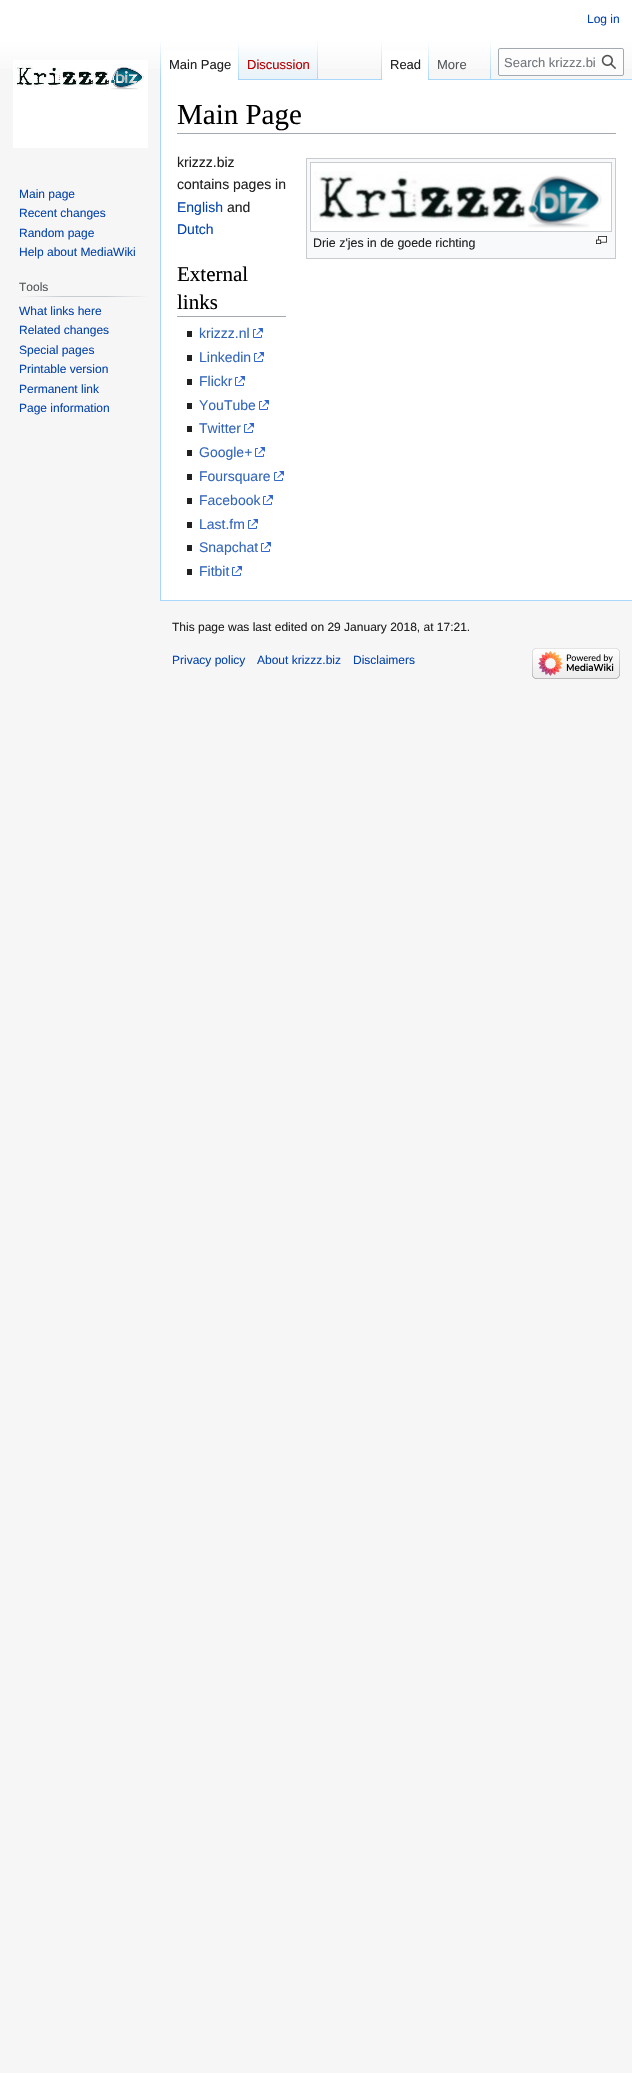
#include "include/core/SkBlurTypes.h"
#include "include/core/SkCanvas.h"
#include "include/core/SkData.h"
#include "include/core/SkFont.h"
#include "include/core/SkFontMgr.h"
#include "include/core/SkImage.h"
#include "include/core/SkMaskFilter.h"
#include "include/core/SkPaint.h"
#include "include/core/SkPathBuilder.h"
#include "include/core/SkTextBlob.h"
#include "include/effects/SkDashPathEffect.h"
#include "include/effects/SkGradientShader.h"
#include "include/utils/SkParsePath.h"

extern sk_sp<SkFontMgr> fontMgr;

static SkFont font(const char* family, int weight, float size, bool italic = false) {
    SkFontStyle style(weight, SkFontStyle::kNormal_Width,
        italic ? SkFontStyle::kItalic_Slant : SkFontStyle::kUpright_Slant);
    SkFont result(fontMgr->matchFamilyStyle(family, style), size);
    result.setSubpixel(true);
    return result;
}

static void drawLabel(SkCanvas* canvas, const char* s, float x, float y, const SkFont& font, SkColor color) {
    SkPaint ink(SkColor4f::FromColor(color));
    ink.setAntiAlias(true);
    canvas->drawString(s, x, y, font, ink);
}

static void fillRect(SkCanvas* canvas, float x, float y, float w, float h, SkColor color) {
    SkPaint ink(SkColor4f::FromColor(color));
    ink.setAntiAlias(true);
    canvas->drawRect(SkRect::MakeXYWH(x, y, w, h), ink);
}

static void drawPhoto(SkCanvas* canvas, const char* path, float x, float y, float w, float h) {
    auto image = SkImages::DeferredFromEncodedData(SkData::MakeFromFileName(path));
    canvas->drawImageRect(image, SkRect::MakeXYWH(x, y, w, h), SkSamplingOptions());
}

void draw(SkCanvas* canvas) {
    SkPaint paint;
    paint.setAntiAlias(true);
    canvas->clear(0xFFF6F6F6);
    {
        const SkColor colors[] = {0xFFFFFFFF, 0xFFF6F6F6};
        const float stops[] = {0.5f, 1};
        const SkPoint ends[] = {{316, 0}, {316, 80}};
        paint.setShader(SkGradientShader::MakeLinear(ends, colors, stops, 2, SkTileMode::kClamp));
        paint.setAlpha(255);
    }
    canvas->drawRect(SkRect::MakeXYWH(0, 0, 632, 69), paint);
    SkFont font1 = font("Liberation Sans", 400, 12);
    drawLabel(canvas, "Log in", 587, 23, font1, 0xFF0645AD);
    fillRect(canvas, 160, 600, 472, 1, 0xFFA7D7F9);
    fillRect(canvas, 160, 79, 1, 522, 0xFFA7D7F9);
    {
        const SkColor colors[] = {0x00A7D7F9, 0xFFA7D7F9};
        const float stops[] = {0, 1};
        const SkPoint ends[] = {{161, 40}, {161, 80}};
        paint.setShader(SkGradientShader::MakeLinear(ends, colors, stops, 2, SkTileMode::kClamp));
        paint.setAlpha(255);
    }
    canvas->drawRect(SkRect::MakeXYWH(160, 40, 1, 40), paint);
    fillRect(canvas, 161, 51, 77, 29, 0xFFFFFFFF);
    {
        const SkColor colors[] = {0xFFFFFFFF, 0xFFA7D7F9};
        const float stops[] = {0, 1};
        const SkPoint ends[] = {{239, 40}, {239, 80}};
        paint.setShader(SkGradientShader::MakeLinear(ends, colors, stops, 2, SkTileMode::kClamp));
        paint.setAlpha(255);
    }
    canvas->drawRect(SkRect::MakeXYWH(238, 40, 1, 40), paint);
    SkFont font2 = font("Liberation Sans", 400, 13);
    drawLabel(canvas, "Main Page", 169, 69, font2, 0xFF202122);
    {
        const SkColor colors[] = {0xFF77C1F6, 0xFFE8F2F8, 0xFFFFFFFF};
        const float stops[] = {0, 0.03f, 1};
        const SkPoint ends[] = {{279, 80}, {279, 40}};
        paint.setShader(SkGradientShader::MakeLinear(ends, colors, stops, 3, SkTileMode::kClamp));
        paint.setAlpha(255);
    }
    canvas->drawRect(SkRect::MakeXYWH(239, 46, 79, 34), paint);
    {
        const SkColor colors[] = {0x00A7D7F9, 0xFFA7D7F9};
        const float stops[] = {0, 1};
        const SkPoint ends[] = {{318, 40}, {318, 80}};
        paint.setShader(SkGradientShader::MakeLinear(ends, colors, stops, 2, SkTileMode::kClamp));
        paint.setAlpha(255);
    }
    canvas->drawRect(SkRect::MakeXYWH(317, 40, 1, 40), paint);
    drawLabel(canvas, "Discussion", 247, 69, font2, 0xFFBA0000);
    fillRect(canvas, 318, 79, 314, 1, 0xFFA7D7F9);
    {
        const SkColor colors[] = {0x00A7D7F9, 0xFFA7D7F9};
        const float stops[] = {0, 1};
        const SkPoint ends[] = {{382, 40}, {382, 80}};
        paint.setShader(SkGradientShader::MakeLinear(ends, colors, stops, 2, SkTileMode::kClamp));
        paint.setAlpha(255);
    }
    canvas->drawRect(SkRect::MakeXYWH(381, 40, 1, 40), paint);
    fillRect(canvas, 382, 51, 46, 29, 0xFFFFFFFF);
    {
        const SkColor colors[] = {0xFFFFFFFF, 0xFFA7D7F9};
        const float stops[] = {0, 1};
        const SkPoint ends[] = {{429, 40}, {429, 80}};
        paint.setShader(SkGradientShader::MakeLinear(ends, colors, stops, 2, SkTileMode::kClamp));
        paint.setAlpha(255);
    }
    canvas->drawRect(SkRect::MakeXYWH(428, 40, 1, 40), paint);
    drawLabel(canvas, "Read", 390, 69, font2, 0xFF202122);
    {
        const SkColor colors[] = {0x00A7D7F9, 0xFFA7D7F9};
        const float stops[] = {0, 1};
        const SkPoint ends[] = {{491, 40}, {491, 80}};
        paint.setShader(SkGradientShader::MakeLinear(ends, colors, stops, 2, SkTileMode::kClamp));
        paint.setAlpha(255);
    }
    canvas->drawRect(SkRect::MakeXYWH(490, 40, 1, 40), paint);
    drawLabel(canvas, "More", 437, 69, font2, 0xFF54595D);
    paint.setShader(nullptr);
    paint.setColor(0x80FFFFFF);
    canvas->drawRoundRect(SkRect::MakeXYWH(498.5f, 48.5f, 125, 27), 1.5f, 1.5f, paint);
    paint.setStroke(true);
    paint.setStrokeWidth(1);
    paint.setColor(0xFFA2A9B1);
    canvas->drawRoundRect(SkRect::MakeXYWH(498.5f, 48.5f, 125, 27), 1.5f, 1.5f, paint);
    drawLabel(canvas, "Search krizzz.bi", 504, 67, font2, 0xFF72777D);
    drawPhoto(canvas, "assets/img1.png", 601, 54, 15, 15);
    drawPhoto(canvas, "assets/img2.png", 13, 60, 135, 88);
    drawLabel(canvas, "Main page", 19, 198, font1, 0xFF0645AD);
    drawLabel(canvas, "Recent changes", 19, 217, font1, 0xFF0645AD);
    drawLabel(canvas, "Random page", 19, 237, font1, 0xFF0645AD);
    drawLabel(canvas, "Help about MediaWiki", 19, 256, font1, 0xFF0645AD);
    paint.setStroke(false);
    {
        const SkColor colors[] = {0xFFF6F6F6, 0xFFC8CCD1, 0xFFC8CCD1, 0xFFF6F6F6};
        const float stops[] = {0, 0.33f, 0.66f, 1};
        const SkPoint ends[] = {{19, 297}, {150, 297}};
        paint.setShader(SkGradientShader::MakeLinear(ends, colors, stops, 4, SkTileMode::kClamp));
        paint.setAlpha(255);
    }
    canvas->drawRect(SkRect::MakeXYWH(19, 296, 131, 1), paint);
    drawLabel(canvas, "Tools", 19, 291, font1, 0xFF54595D);
    drawLabel(canvas, "What links here", 19, 315, font1, 0xFF0645AD);
    drawLabel(canvas, "Related changes", 19, 334, font1, 0xFF0645AD);
    drawLabel(canvas, "Special pages", 19, 354, font1, 0xFF0645AD);
    drawLabel(canvas, "Printable version", 19, 373, font1, 0xFF0645AD);
    drawLabel(canvas, "Permanent link", 19, 393, font1, 0xFF0645AD);
    drawLabel(canvas, "Page information", 19, 412, font1, 0xFF0645AD);
    fillRect(canvas, 161, 80, 471, 520, 0xFFFFFFFF);
    fillRect(canvas, 177, 133, 439, 1, 0xFFA2A9B1);
    SkFont font3 = font("Liberation Serif", 400, 29);
    drawLabel(canvas, "Main Page", 177, 124, font3, 0xFF000000);
    SkFont font4 = font("Liberation Sans", 400, 14);
    drawLabel(canvas, "krizzz.biz", 177, 167, font4, 0xFF202122);
    drawLabel(canvas, "contains pages in", 177, 189, font4, 0xFF202122);
    drawLabel(canvas, "English", 177, 212, font4, 0xFF0645AD);
    drawLabel(canvas, "and", 227, 212, font4, 0xFF202122);
    drawLabel(canvas, "Dutch", 177, 234, font4, 0xFF0645AD);
    paint.setShader(nullptr);
    paint.setColor(0xFFF8F9FA);
    canvas->drawRect(SkRect::MakeXYWH(306.5f, 158.5f, 309, 100), paint);
    paint.setStroke(true);
    paint.setColor(0xFFC8CCD1);
    canvas->drawRect(SkRect::MakeXYWH(306.5f, 158.5f, 309, 100), paint);
    paint.setStroke(false);
    paint.setColor(0xFFFFFFFF);
    canvas->drawRect(SkRect::MakeXYWH(310.5f, 162.5f, 301, 69), paint);
    paint.setStroke(true);
    paint.setColor(0xFFC8CCD1);
    canvas->drawRect(SkRect::MakeXYWH(310.5f, 162.5f, 301, 69), paint);
    drawPhoto(canvas, "assets/img3.png", 313, 171, 289, 57);
    SkFont font5 = font("Liberation Sans", 400, 12.4f);
    drawLabel(canvas, "Drie z'jes in de goede richting", 313, 247, font5, 0xFF202122);
    drawPhoto(canvas, "assets/img4.png", 596, 236, 11, 8);
    fillRect(canvas, 177, 316, 109, 1, 0xFFA2A9B1);
    SkFont font6 = font("Liberation Serif", 400, 21);
    drawLabel(canvas, "External", 177, 281, font6, 0xFF000000);
    drawLabel(canvas, "links", 177, 309, font6, 0xFF000000);
    fillRect(canvas, 187, 331, 5, 6, 0xFF202122);
    drawLabel(canvas, "krizzz.nl", 199, 338, font4, 0xFF3366BB);
    drawPhoto(canvas, "assets/img5.png", 253, 328, 10, 10);
    fillRect(canvas, 187, 355, 5, 6, 0xFF202122);
    drawLabel(canvas, "Linkedin", 199, 362, font4, 0xFF3366BB);
    drawPhoto(canvas, "assets/img5.png", 254, 352, 10, 10);
    fillRect(canvas, 187, 379, 5, 6, 0xFF202122);
    drawLabel(canvas, "Flickr", 199, 386, font4, 0xFF3366BB);
    drawPhoto(canvas, "assets/img5.png", 235, 376, 10, 10);
    fillRect(canvas, 187, 403, 5, 6, 0xFF202122);
    drawLabel(canvas, "YouTube", 199, 410, font4, 0xFF3366BB);
    drawPhoto(canvas, "assets/img5.png", 259, 400, 10, 10);
    fillRect(canvas, 187, 426, 5, 6, 0xFF202122);
    drawLabel(canvas, "Twitter", 199, 433, font4, 0xFF3366BB);
    drawPhoto(canvas, "assets/img5.png", 244, 423, 10, 10);
    fillRect(canvas, 187, 450, 5, 6, 0xFF202122);
    drawLabel(canvas, "Google+", 199, 457, font4, 0xFF3366BB);
    drawPhoto(canvas, "assets/img5.png", 255, 447, 10, 10);
    fillRect(canvas, 187, 474, 5, 6, 0xFF202122);
    drawLabel(canvas, "Foursquare", 199, 481, font4, 0xFF3366BB);
    drawPhoto(canvas, "assets/img5.png", 274, 471, 10, 10);
    fillRect(canvas, 187, 498, 5, 6, 0xFF202122);
    drawLabel(canvas, "Facebook", 199, 505, font4, 0xFF3366BB);
    drawPhoto(canvas, "assets/img5.png", 263, 495, 10, 10);
    fillRect(canvas, 187, 522, 5, 6, 0xFF202122);
    drawLabel(canvas, "Last.fm", 199, 529, font4, 0xFF3366BB);
    drawPhoto(canvas, "assets/img5.png", 248, 519, 10, 10);
    fillRect(canvas, 187, 545, 5, 6, 0xFF202122);
    drawLabel(canvas, "Snapchat", 199, 552, font4, 0xFF3366BB);
    drawPhoto(canvas, "assets/img5.png", 261, 542, 10, 10);
    fillRect(canvas, 187, 569, 5, 6, 0xFF202122);
    drawLabel(canvas, "Fitbit", 199, 576, font4, 0xFF3366BB);
    drawPhoto(canvas, "assets/img5.png", 232, 566, 10, 10);
    drawLabel(canvas, "This page was last edited on 29 January 2018, at 17:21.", 172, 631, font1, 0xFF202122);
    drawLabel(canvas, "Privacy policy", 172, 664, font1, 0xFF0645AD);
    drawLabel(canvas, "About krizzz.biz", 257, 664, font1, 0xFF0645AD);
    drawLabel(canvas, "Disclaimers", 353, 664, font1, 0xFF0645AD);
    drawPhoto(canvas, "assets/img6.png", 532, 648, 88, 31);
}
